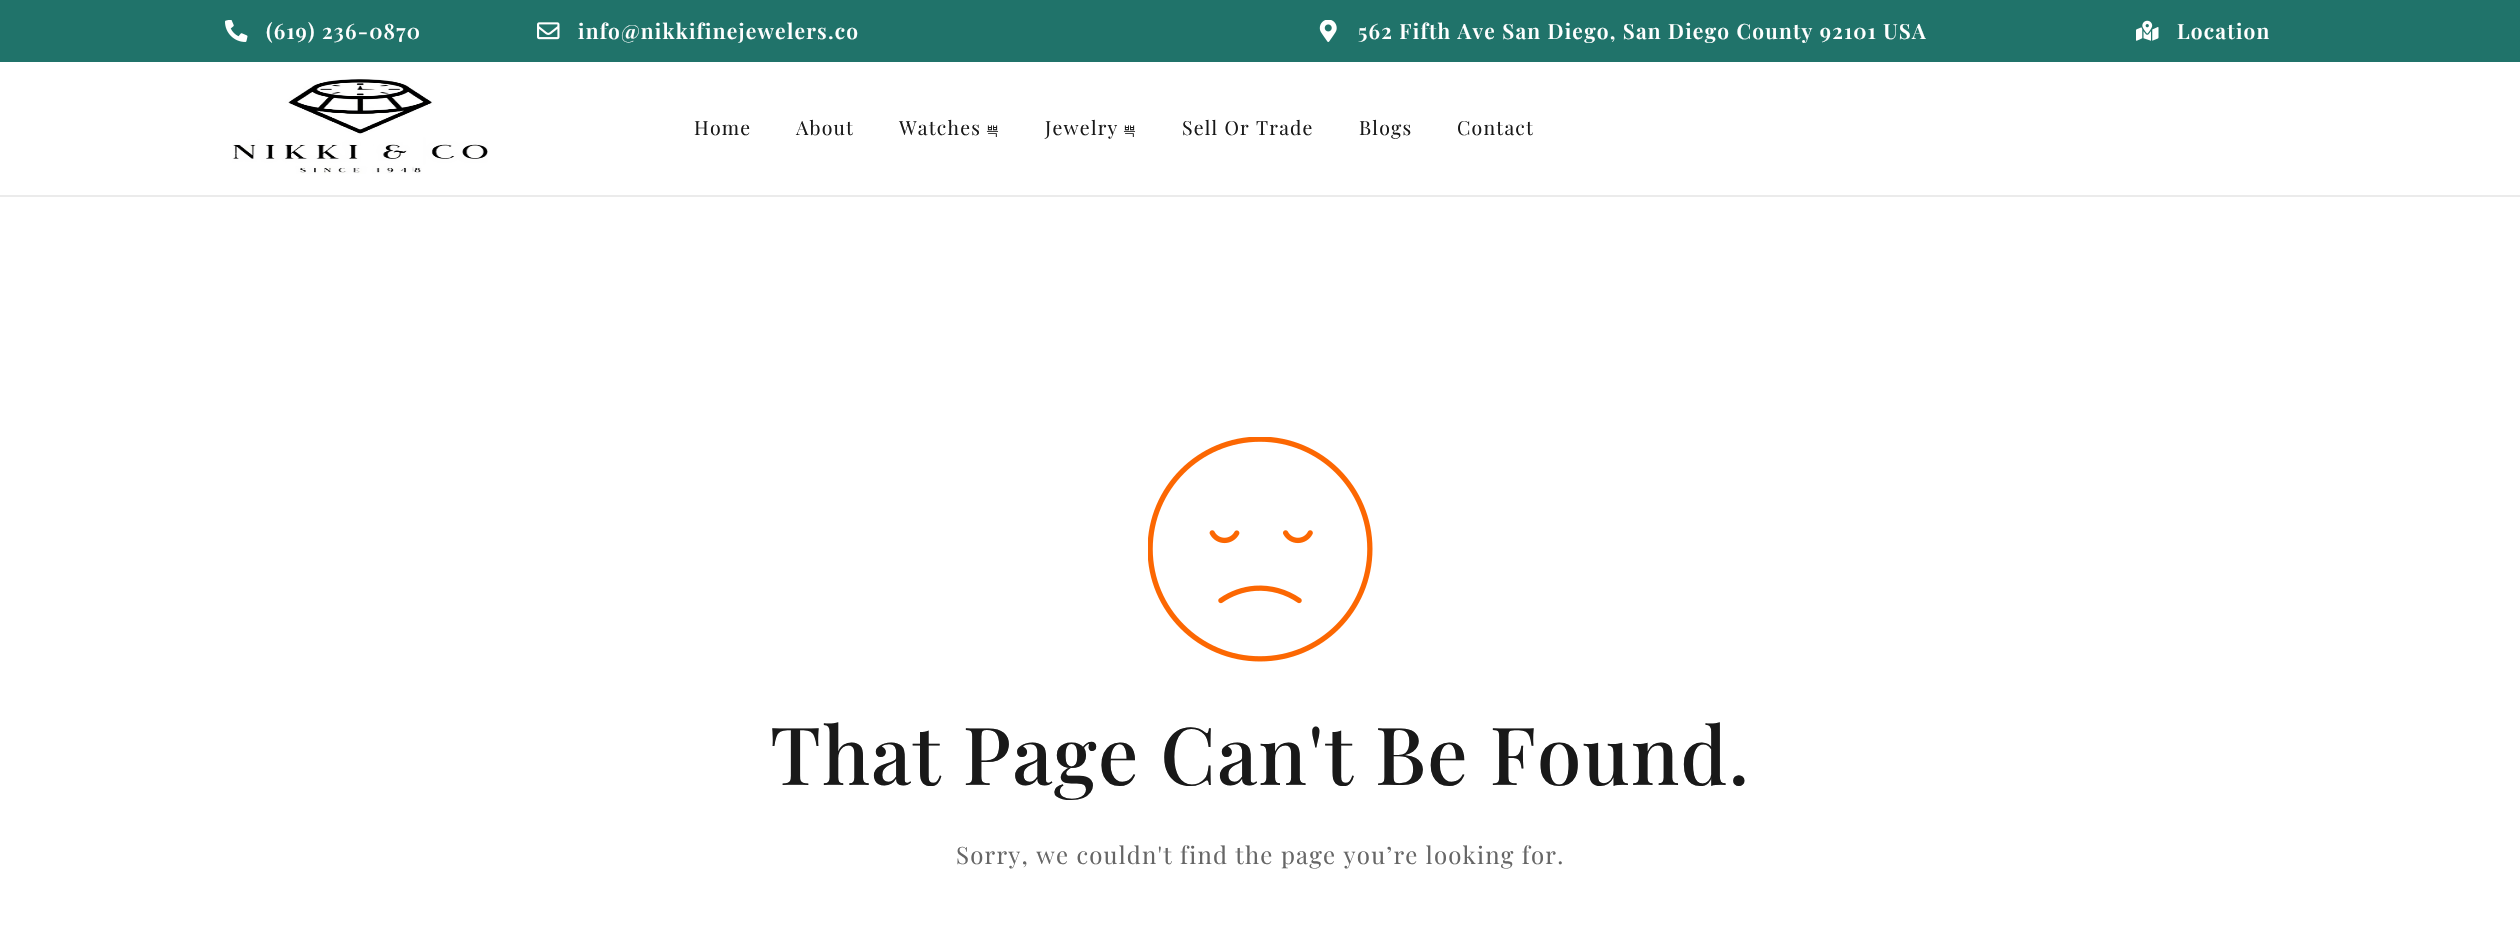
#include "include/core/SkBlurTypes.h"
#include "include/core/SkCanvas.h"
#include "include/core/SkData.h"
#include "include/core/SkFont.h"
#include "include/core/SkFontMgr.h"
#include "include/core/SkImage.h"
#include "include/core/SkMaskFilter.h"
#include "include/core/SkPaint.h"
#include "include/core/SkPathBuilder.h"
#include "include/core/SkTextBlob.h"
#include "include/effects/SkDashPathEffect.h"
#include "include/effects/SkGradientShader.h"
#include "include/utils/SkParsePath.h"

extern sk_sp<SkFontMgr> fontMgr;

static SkFont font(const char* family, int weight, float size, bool italic = false) {
    SkFontStyle style(weight, SkFontStyle::kNormal_Width,
        italic ? SkFontStyle::kItalic_Slant : SkFontStyle::kUpright_Slant);
    SkFont result(fontMgr->matchFamilyStyle(family, style), size);
    result.setSubpixel(true);
    return result;
}

static void drawTracked(SkCanvas* canvas, const char* s, float x, float y, const SkFont& font, const SkPaint& ink, float letter, float word) {
    std::vector<SkGlyphID> glyphs(font.countText(s, strlen(s), SkTextEncoding::kUTF8));
    std::vector<float> xs(glyphs.size());
    font.textToGlyphs(s, strlen(s), SkTextEncoding::kUTF8, glyphs);
    font.getXPos(glyphs, xs, x);
    float extra = 0;
    for (size_t i = 0; i < glyphs.size(); i++) {
        xs[i] += extra;
        extra += letter + word * (glyphs[i] == font.unicharToGlyph(' '));
    }
    canvas->drawTextBlob(SkTextBlob::MakeFromPosHGlyphs(glyphs, xs, y, font), 0, 0, ink);
}

static void fillRect(SkCanvas* canvas, float x, float y, float w, float h, SkColor color) {
    SkPaint ink(SkColor4f::FromColor(color));
    ink.setAntiAlias(true);
    canvas->drawRect(SkRect::MakeXYWH(x, y, w, h), ink);
}

static void drawPhoto(SkCanvas* canvas, const char* path, float x, float y, float w, float h) {
    auto image = SkImages::DeferredFromEncodedData(SkData::MakeFromFileName(path));
    canvas->drawImageRect(image, SkRect::MakeXYWH(x, y, w, h), SkSamplingOptions());
}

void draw(SkCanvas* canvas) {
    SkPaint paint;
    paint.setAntiAlias(true);
    canvas->clear(0xFFFFFFFF);
    fillRect(canvas, 0, 0, 2520, 62, 0xFF20736A);
    drawPhoto(canvas, "assets/img1.png", 225, 20, 23, 22);
    SkFont font1 = font("Playfair Display", 600, 21);
    paint.setColor(0xFFFFFFFF);
    drawTracked(canvas, "(619) 236-0870", 266, 39, font1, paint, 1.2f, 0);
    drawPhoto(canvas, "assets/img2.png", 537, 22, 23, 18);
    drawTracked(canvas, "info@nikkifinejewelers.co", 578, 39, font1, paint, 1.2f, 0);
    drawPhoto(canvas, "assets/img3.png", 1319, 20, 18, 22);
    drawTracked(canvas, "562 Fifth Ave San Diego, San Diego County 92101 USA", 1358, 39, font1, paint, 1.2f, 0);
    drawPhoto(canvas, "assets/img4.png", 2136, 20, 23, 21);
    drawTracked(canvas, "Location", 2177, 39, font1, paint, 1.2f, 0);
    fillRect(canvas, 0, 195, 2520, 2, 0xFFEBEBEB);
    drawPhoto(canvas, "assets/img5.png", 232, 79, 256, 95);
    SkFont font2 = font("Playfair Display", 400, 19.5f);
    paint.setColor(0xFF191919);
    drawTracked(canvas, "Home", 694, 135, font2, paint, 1.2f, 0);
    drawTracked(canvas, "About", 796, 135, font2, paint, 1.2f, 0);
    drawTracked(canvas, "Watches", 899, 135, font2, paint, 1.2f, 0);
    SkFont font3 = font("WenQuanYi Zen Hei", 500, 13);
    drawTracked(canvas, "쁙", 986, 135, font3, paint, 1.2f, 0);
    drawTracked(canvas, "Jewelry", 1045, 135, font2, paint, 1.2f, 0);
    drawTracked(canvas, "쁙", 1123, 135, font3, paint, 1.2f, 0);
    drawTracked(canvas, "Sell Or Trade", 1182, 135, font2, paint, 1.2f, 0);
    drawTracked(canvas, "Blogs", 1359, 135, font2, paint, 1.2f, 0);
    drawTracked(canvas, "Contact", 1457, 135, font2, paint, 1.2f, 0);
    drawPhoto(canvas, "assets/img6.png", 1148, 437, 225, 225);
    SkFont font4 = font("Playfair Display", 500, 80);
    drawTracked(canvas, "That Page Can't Be Found.", 770, 785, font4, paint, 1.2f, 0);
    SkFont font5 = font("Playfair Display", 400, 24);
    paint.setColor(0xFF666666);
    drawTracked(canvas, "Sorry, we couldn't find the page you’re looking for.", 956, 864, font5, paint, 1.2f, 0);
}
